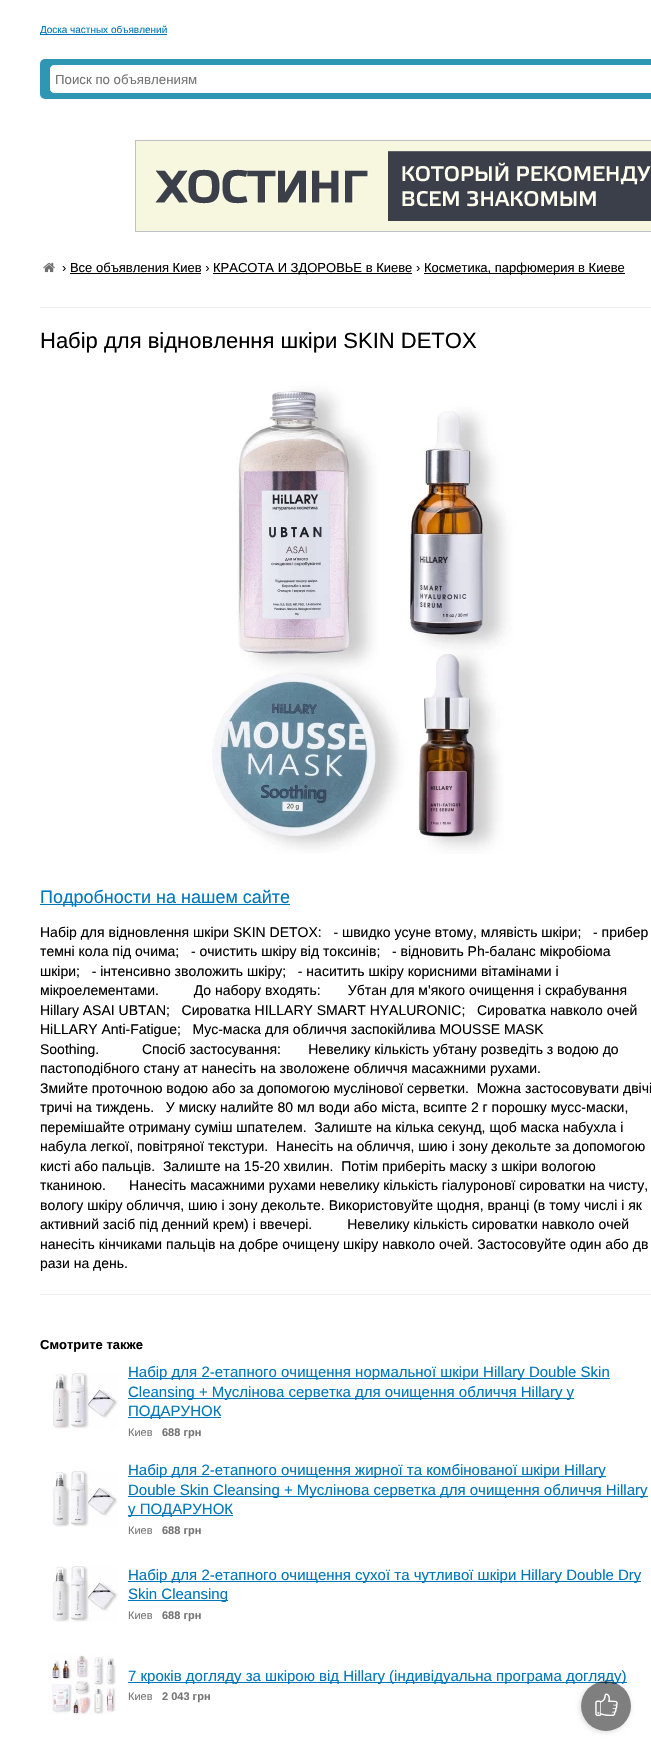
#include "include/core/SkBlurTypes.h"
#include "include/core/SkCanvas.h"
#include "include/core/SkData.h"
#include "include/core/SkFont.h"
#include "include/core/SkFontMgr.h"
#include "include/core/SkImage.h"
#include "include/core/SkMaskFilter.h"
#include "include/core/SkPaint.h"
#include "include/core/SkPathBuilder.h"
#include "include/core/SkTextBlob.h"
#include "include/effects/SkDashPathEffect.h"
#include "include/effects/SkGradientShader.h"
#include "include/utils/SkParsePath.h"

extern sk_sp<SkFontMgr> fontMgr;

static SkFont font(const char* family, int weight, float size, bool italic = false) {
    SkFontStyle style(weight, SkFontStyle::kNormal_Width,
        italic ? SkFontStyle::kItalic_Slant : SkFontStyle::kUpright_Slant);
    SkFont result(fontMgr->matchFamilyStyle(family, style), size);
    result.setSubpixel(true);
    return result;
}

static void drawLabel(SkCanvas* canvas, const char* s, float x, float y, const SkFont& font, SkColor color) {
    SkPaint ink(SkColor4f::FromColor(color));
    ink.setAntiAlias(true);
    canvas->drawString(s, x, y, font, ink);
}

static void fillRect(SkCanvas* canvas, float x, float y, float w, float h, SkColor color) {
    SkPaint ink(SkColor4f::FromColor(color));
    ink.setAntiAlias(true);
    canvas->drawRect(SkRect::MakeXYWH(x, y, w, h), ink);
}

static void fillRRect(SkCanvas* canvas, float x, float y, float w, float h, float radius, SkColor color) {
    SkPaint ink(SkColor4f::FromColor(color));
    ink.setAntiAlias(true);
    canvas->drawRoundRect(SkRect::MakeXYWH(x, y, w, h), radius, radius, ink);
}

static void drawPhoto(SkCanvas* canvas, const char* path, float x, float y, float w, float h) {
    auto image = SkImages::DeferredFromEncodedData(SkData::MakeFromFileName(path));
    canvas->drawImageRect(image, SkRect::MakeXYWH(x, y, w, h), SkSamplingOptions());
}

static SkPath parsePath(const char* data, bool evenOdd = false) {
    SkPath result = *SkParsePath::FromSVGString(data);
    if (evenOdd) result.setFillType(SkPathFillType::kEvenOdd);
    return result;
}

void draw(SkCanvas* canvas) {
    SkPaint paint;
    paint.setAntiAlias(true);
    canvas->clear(0xFFFFFFFF);
    fillRect(canvas, 40, 34, 127, 1, 0xFF0077BB);
    SkFont font1 = font("Liberation Sans", 400, 10);
    drawLabel(canvas, "Доска частных объявлений", 40, 33, font1, 0xFF0077BB);
    fillRRect(canvas, 40, 59, 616, 40, 5, 0xFF2F96B4);
    paint.setColor(0xFFFFFFFF);
    canvas->drawPath(parsePath("M54 65.5H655.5V92.5H54C52 92.5 50.5 91 50.5 89V69C50.5 67 52 65.5 54 65.5Z"), paint);
    paint.setStroke(true);
    paint.setStrokeWidth(1);
    canvas->drawPath(parsePath("M54 65.5H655.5V92.5H54C52 92.5 50.5 91 50.5 89V69C50.5 67 52 65.5 54 65.5Z"), paint);
    SkFont font2 = font("Liberation Sans", 400, 13.25f);
    drawLabel(canvas, "Поиск по объявлениям", 55, 84, font2, 0xFF757575);
    paint.setColor(0xFFBDC0C6);
    canvas->drawRect(SkRect::MakeXYWH(135.5f, 140.5f, 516, 91), paint);
    drawPhoto(canvas, "assets/img1.png", 136, 141, 515, 90);
    drawPhoto(canvas, "assets/img2.png", 43, 262, 12, 11);
    SkFont font3 = font("Liberation Sans", 400, 13);
    drawLabel(canvas, "› Все объявления Киев ›", 62, 272, font3, 0xFF000000);
    fillRect(canvas, 213, 273, 199, 1, 0xFF000000);
    drawLabel(canvas, "КРАСОТА И ЗДОРОВЬЕ в Киеве ›", 213, 272, font3, 0xFF000000);
    fillRect(canvas, 424, 273, 201, 1, 0xFF000000);
    drawLabel(canvas, "Косметика, парфюмерия в Киеве", 424, 272, font3, 0xFF000000);
    fillRect(canvas, 70, 273, 131, 1, 0xFF000000);
    paint.setStroke(false);
    paint.setColor(0xFFEEEEEE);
    canvas->drawPath(parsePath("M40 307H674C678 307 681 310 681 314V1733H40ZM40 308H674C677 308 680 311 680 314V1733H40Z", true), paint);
    SkFont font4 = font("Liberation Sans", 400, 22);
    drawLabel(canvas, "Набір для відновлення шкіри SKIN DETOX", 40, 348, font4, 0xFF000000);
    drawPhoto(canvas, "assets/img3.png", 40, 374, 611, 480);
    fillRect(canvas, 40, 904, 250, 1, 0xFF0077BB);
    SkFont font5 = font("Liberation Sans", 400, 18);
    drawLabel(canvas, "Подробности на нашем сайте", 40, 903, font5, 0xFF0077BB);
    SkFont font6 = font("Liberation Sans", 400, 14);
    drawLabel(canvas, "Набір для відновлення шкіри SKIN DETOX:   - швидко усуне втому, млявість шкіри;   - прибер", 40, 937, font6, 0xFF000000);
    drawLabel(canvas, "темні кола під очима;   - очистить шкіру від токсинів;   - відновить Ph-баланс мікробіома", 40, 956, font6, 0xFF000000);
    drawLabel(canvas, "шкіри;   - інтенсивно зволожить шкіру;   - наситить шкіру корисними вітамінами і", 40, 976, font6, 0xFF000000);
    drawLabel(canvas, "мікроелементами.         До набору входять:       Убтан для м'якого очищення і скрабування", 40, 995, font6, 0xFF000000);
    drawLabel(canvas, "Hillary ASAI UBTAN;   Сироватка HILLARY SMART HYALURONIC;   Сироватка навколо очей", 40, 1015, font6, 0xFF000000);
    drawLabel(canvas, "HiLLARY Anti-Fatigue;   Мус-маска для обличчя заспокійлива MOUSSE MASK", 40, 1034, font6, 0xFF000000);
    drawLabel(canvas, "Soothing.           Спосіб застосування:       Невелику кількість убтану розведіть з водою до", 40, 1054, font6, 0xFF000000);
    drawLabel(canvas, "пастоподібного стану ат нанесіть на зволожене обличчя масажними рухами.", 40, 1073, font6, 0xFF000000);
    drawLabel(canvas, "Змийте проточною водою або за допомогою муслінової серветки.  Можна застосовувати двічі", 40, 1093, font6, 0xFF000000);
    drawLabel(canvas, "тричі на тиждень.   У миску налийте 80 мл води або міста, всипте 2 г порошку мусс-маски,", 40, 1112, font6, 0xFF000000);
    drawLabel(canvas, "перемішайте отриману суміш шпателем.  Залиште на кілька секунд, щоб маска набухла і", 40, 1132, font6, 0xFF000000);
    drawLabel(canvas, "набула легкої, повітряної текстури.  Нанесіть на обличчя, шию і зону декольте за допомогою", 40, 1151, font6, 0xFF000000);
    drawLabel(canvas, "кисті або пальців.  Залиште на 15-20 хвилин.  Потім приберіть маску з шкіри вологою", 40, 1171, font6, 0xFF000000);
    drawLabel(canvas, "тканиною.      Нанесіть масажними рухами невелику кількість гіалуроновї сироватки на чисту,", 40, 1190, font6, 0xFF000000);
    drawLabel(canvas, "вологу шкіру обличчя, шию і зону декольте. Використовуйте щодня, вранці (в тому числі і як", 40, 1210, font6, 0xFF000000);
    drawLabel(canvas, "активний засіб під денний крем) і ввечері.         Невелику кількість сироватки навколо очей", 40, 1229, font6, 0xFF000000);
    drawLabel(canvas, "нанесіть кінчиками пальців на добре очищену шкіру навколо очей. Застосовуйте один або дв", 40, 1249, font6, 0xFF000000);
    drawLabel(canvas, "рази на день.", 40, 1268, font6, 0xFF000000);
    fillRect(canvas, 40, 1294, 611, 1, 0xFFEEEEEE);
    SkFont font7 = font("Liberation Sans", 700, 13);
    drawLabel(canvas, "Смотрите также", 40, 1349, font7, 0xFF000000);
    drawPhoto(canvas, "assets/img4.png", 52, 1373, 66, 56);
    fillRect(canvas, 128, 1378, 482, 1, 0xFF0077BB);
    SkFont font8 = font("Liberation Sans", 400, 15);
    drawLabel(canvas, "Набір для 2-етапного очищення нормальної шкіри Hillary Double Skin", 128, 1377, font8, 0xFF0077BB);
    fillRect(canvas, 128, 1398, 446, 1, 0xFF0077BB);
    drawLabel(canvas, "Cleansing + Муслінова серветка для очищення обличчя Hillary у", 128, 1397, font8, 0xFF0077BB);
    fillRect(canvas, 128, 1417, 93, 1, 0xFF0077BB);
    drawLabel(canvas, "ПОДАРУНОК", 128, 1416, font8, 0xFF0077BB);
    SkFont font9 = font("Liberation Sans", 400, 11);
    drawLabel(canvas, "Киев", 128, 1436, font9, 0xFF757575);
    SkFont font10 = font("Liberation Sans", 700, 11);
    drawLabel(canvas, "688 грн", 162, 1436, font10, 0xFF757575);
    drawPhoto(canvas, "assets/img5.png", 52, 1471, 66, 56);
    fillRect(canvas, 128, 1476, 478, 1, 0xFF0077BB);
    drawLabel(canvas, "Набір для 2-етапного очищення жирної та комбінованої шкіри Hillary", 128, 1475, font8, 0xFF0077BB);
    fillRect(canvas, 128, 1496, 520, 1, 0xFF0077BB);
    drawLabel(canvas, "Double Skin Cleansing + Муслінова серветка для очищення обличчя Hillary", 128, 1495, font8, 0xFF0077BB);
    fillRect(canvas, 128, 1515, 105, 1, 0xFF0077BB);
    drawLabel(canvas, "у ПОДАРУНОК", 128, 1514, font8, 0xFF0077BB);
    drawLabel(canvas, "Киев", 128, 1534, font9, 0xFF757575);
    drawLabel(canvas, "688 грн", 162, 1534, font10, 0xFF757575);
    drawPhoto(canvas, "assets/img6.png", 52, 1566, 66, 56);
    fillRect(canvas, 128, 1581, 513, 1, 0xFF0077BB);
    drawLabel(canvas, "Набір для 2-етапного очищення сухої та чутливої шкіри Hillary Double Dry", 128, 1580, font8, 0xFF0077BB);
    fillRect(canvas, 128, 1600, 100, 1, 0xFF0077BB);
    drawLabel(canvas, "Skin Cleansing", 128, 1599, font8, 0xFF0077BB);
    drawLabel(canvas, "Киев", 128, 1619, font9, 0xFF757575);
    drawLabel(canvas, "688 грн", 162, 1619, font10, 0xFF757575);
    drawPhoto(canvas, "assets/img7.png", 48, 1654, 68, 61);
    fillRect(canvas, 128, 1682, 499, 1, 0xFF0077BB);
    drawLabel(canvas, "7 кроків догляду за шкірою від Hillary (індивідуальна програма догляду)", 128, 1681, font8, 0xFF0077BB);
    drawLabel(canvas, "Киев", 128, 1700, font9, 0xFF757575);
    drawLabel(canvas, "2 043 грн", 162, 1700, font10, 0xFF757575);
    canvas->save();
    canvas->clipPath(parsePath("M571 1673H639V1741H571ZM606 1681C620 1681 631 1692 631 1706C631 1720 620 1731 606 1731C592 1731 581 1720 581 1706C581 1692 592 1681 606 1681Z", true), true);
    paint.setColor(0x26000000);
    paint.setMaskFilter(SkMaskFilter::MakeBlur(kNormal_SkBlurStyle, 2.5f));
    canvas->drawRoundRect(SkRect::MakeXYWH(580, 1682, 50, 50), 25, 25, paint);
    paint.setMaskFilter(nullptr);
    canvas->restore();
    paint.setColor(0x80000000);
    canvas->drawCircle(606, 1706, 25, paint);
    drawPhoto(canvas, "assets/img8.png", 595, 1693, 23, 23);
}
